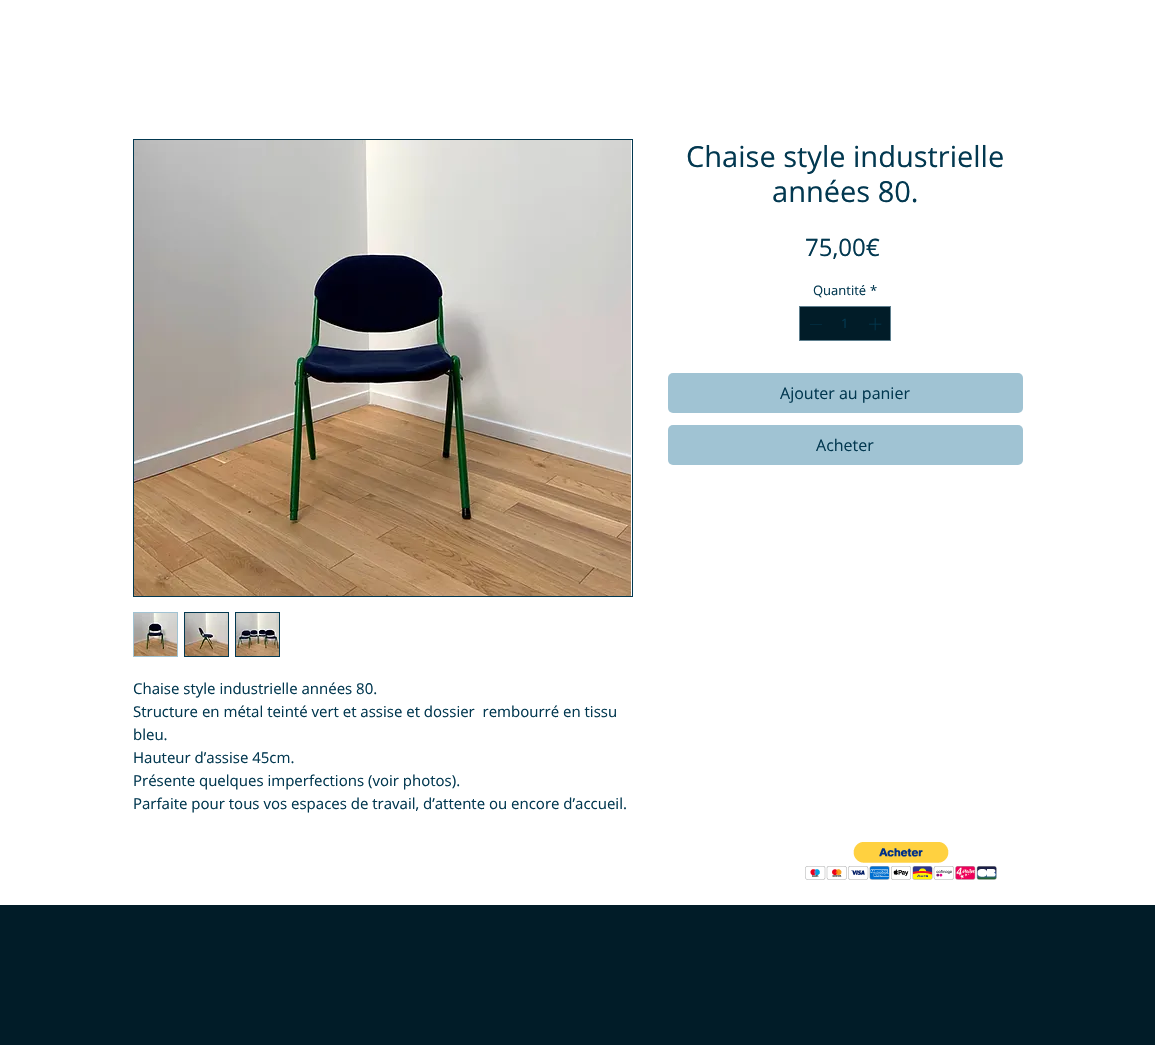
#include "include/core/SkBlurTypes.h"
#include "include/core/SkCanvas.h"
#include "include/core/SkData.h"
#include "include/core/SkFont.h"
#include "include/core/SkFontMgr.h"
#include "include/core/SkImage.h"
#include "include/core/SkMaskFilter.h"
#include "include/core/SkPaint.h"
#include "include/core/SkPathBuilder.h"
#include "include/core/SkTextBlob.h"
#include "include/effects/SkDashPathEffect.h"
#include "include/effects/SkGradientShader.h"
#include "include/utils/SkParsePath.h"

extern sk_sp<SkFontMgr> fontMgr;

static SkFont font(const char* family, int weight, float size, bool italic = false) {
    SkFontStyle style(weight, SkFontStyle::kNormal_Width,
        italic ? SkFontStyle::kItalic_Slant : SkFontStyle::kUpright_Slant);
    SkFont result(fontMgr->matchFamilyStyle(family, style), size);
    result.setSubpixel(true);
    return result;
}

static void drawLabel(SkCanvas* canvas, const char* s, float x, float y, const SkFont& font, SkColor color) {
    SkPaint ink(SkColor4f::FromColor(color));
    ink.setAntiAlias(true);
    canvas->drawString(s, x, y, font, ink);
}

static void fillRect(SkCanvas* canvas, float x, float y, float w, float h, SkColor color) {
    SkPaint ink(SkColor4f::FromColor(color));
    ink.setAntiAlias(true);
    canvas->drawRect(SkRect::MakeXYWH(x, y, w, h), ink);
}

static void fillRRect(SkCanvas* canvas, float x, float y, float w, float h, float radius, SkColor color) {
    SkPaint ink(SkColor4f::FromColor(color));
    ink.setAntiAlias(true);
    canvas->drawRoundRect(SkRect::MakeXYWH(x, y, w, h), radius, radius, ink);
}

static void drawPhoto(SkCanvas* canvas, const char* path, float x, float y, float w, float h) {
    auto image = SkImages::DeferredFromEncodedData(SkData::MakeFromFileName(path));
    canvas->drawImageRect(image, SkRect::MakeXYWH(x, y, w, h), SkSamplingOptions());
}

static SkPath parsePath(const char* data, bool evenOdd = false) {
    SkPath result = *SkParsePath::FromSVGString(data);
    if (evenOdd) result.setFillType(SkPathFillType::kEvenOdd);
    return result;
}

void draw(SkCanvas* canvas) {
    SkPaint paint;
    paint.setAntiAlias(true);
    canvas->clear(0xFF011C28);
    fillRect(canvas, 0, 0, 1155, 905, 0xFFFFFFFF);
    SkFont font1 = font("Open Sans", 400, 29);
    drawLabel(canvas, "Chaise style industrielle", 686, 167, font1, 0xFF023850);
    drawLabel(canvas, "années 80.", 772, 202, font1, 0xFF023850);
    SkFont font2 = font("Open Sans", 400, 24);
    drawLabel(canvas, "75,00€", 805, 256, font2, 0xFF023850);
    SkFont font3 = font("Open Sans", 400, 13);
    drawLabel(canvas, "Quantité", 813, 295, font3, 0xFF023850);
    drawLabel(canvas, "*", 870, 295, font3, 0xFF023850);
    paint.setColor(0xFF011C28);
    canvas->drawRect(SkRect::MakeXYWH(799.5f, 306.5f, 91, 34), paint);
    paint.setStroke(true);
    paint.setStrokeWidth(1);
    paint.setColor(0xFF60808F);
    canvas->drawRect(SkRect::MakeXYWH(799.5f, 306.5f, 91, 34), paint);
    paint.setStroke(false);
    paint.setColor(0xFF023850);
    canvas->drawPath(parsePath("M822 324V324.5H810V324Z", true), paint);
    drawLabel(canvas, "1", 841, 328, font3, 0xFF023850);
    drawPhoto(canvas, "assets/img1.png", 869, 318, 13, 13);
    fillRRect(canvas, 668, 373, 355, 40, 5, 0xFFA0C3D3);
    SkFont font4 = font("Open Sans", 400, 16);
    drawLabel(canvas, "Ajouter au panier", 780, 399, font4, 0xFF023850);
    fillRRect(canvas, 668, 425, 355, 40, 5, 0xFFA0C3D3);
    drawLabel(canvas, "Acheter", 816, 451, font4, 0xFF023850);
    paint.setStroke(true);
    canvas->drawRect(SkRect::MakeXYWH(133.5f, 139.5f, 499, 457), paint);
    drawPhoto(canvas, "assets/img2.png", 134, 140, 497, 456);
    paint.setColor(0xFFA0C3D3);
    canvas->drawRect(SkRect::MakeXYWH(133.5f, 612.5f, 44, 44), paint);
    drawPhoto(canvas, "assets/img3.png", 134, 613, 43, 43);
    fillRect(canvas, 184, 612, 45, 45, 0xFF023850);
    drawPhoto(canvas, "assets/img4.png", 185, 613, 43, 43);
    fillRect(canvas, 235, 612, 45, 45, 0xFF023850);
    drawPhoto(canvas, "assets/img5.png", 236, 613, 43, 43);
    SkFont font5 = font("Open Sans", 400, 15);
    drawLabel(canvas, "Chaise style industrielle années 80.", 133, 694, font5, 0xFF023850);
    drawLabel(canvas, "Structure en métal teinté vert et assise et dossier  rembourré en tissu", 133, 717, font5, 0xFF023850);
    drawLabel(canvas, "bleu.", 133, 740, font5, 0xFF023850);
    drawLabel(canvas, "Hauteur d’assise 45cm.", 133, 763, font5, 0xFF023850);
    drawLabel(canvas, "Présente quelques imperfections (voir photos).", 133, 786, font5, 0xFF023850);
    drawLabel(canvas, "Parfaite pour tous vos espaces de travail, d’attente ou encore d’accueil.", 133, 809, font5, 0xFF023850);
    drawPhoto(canvas, "assets/img6.png", 805, 842, 192, 38);
}
